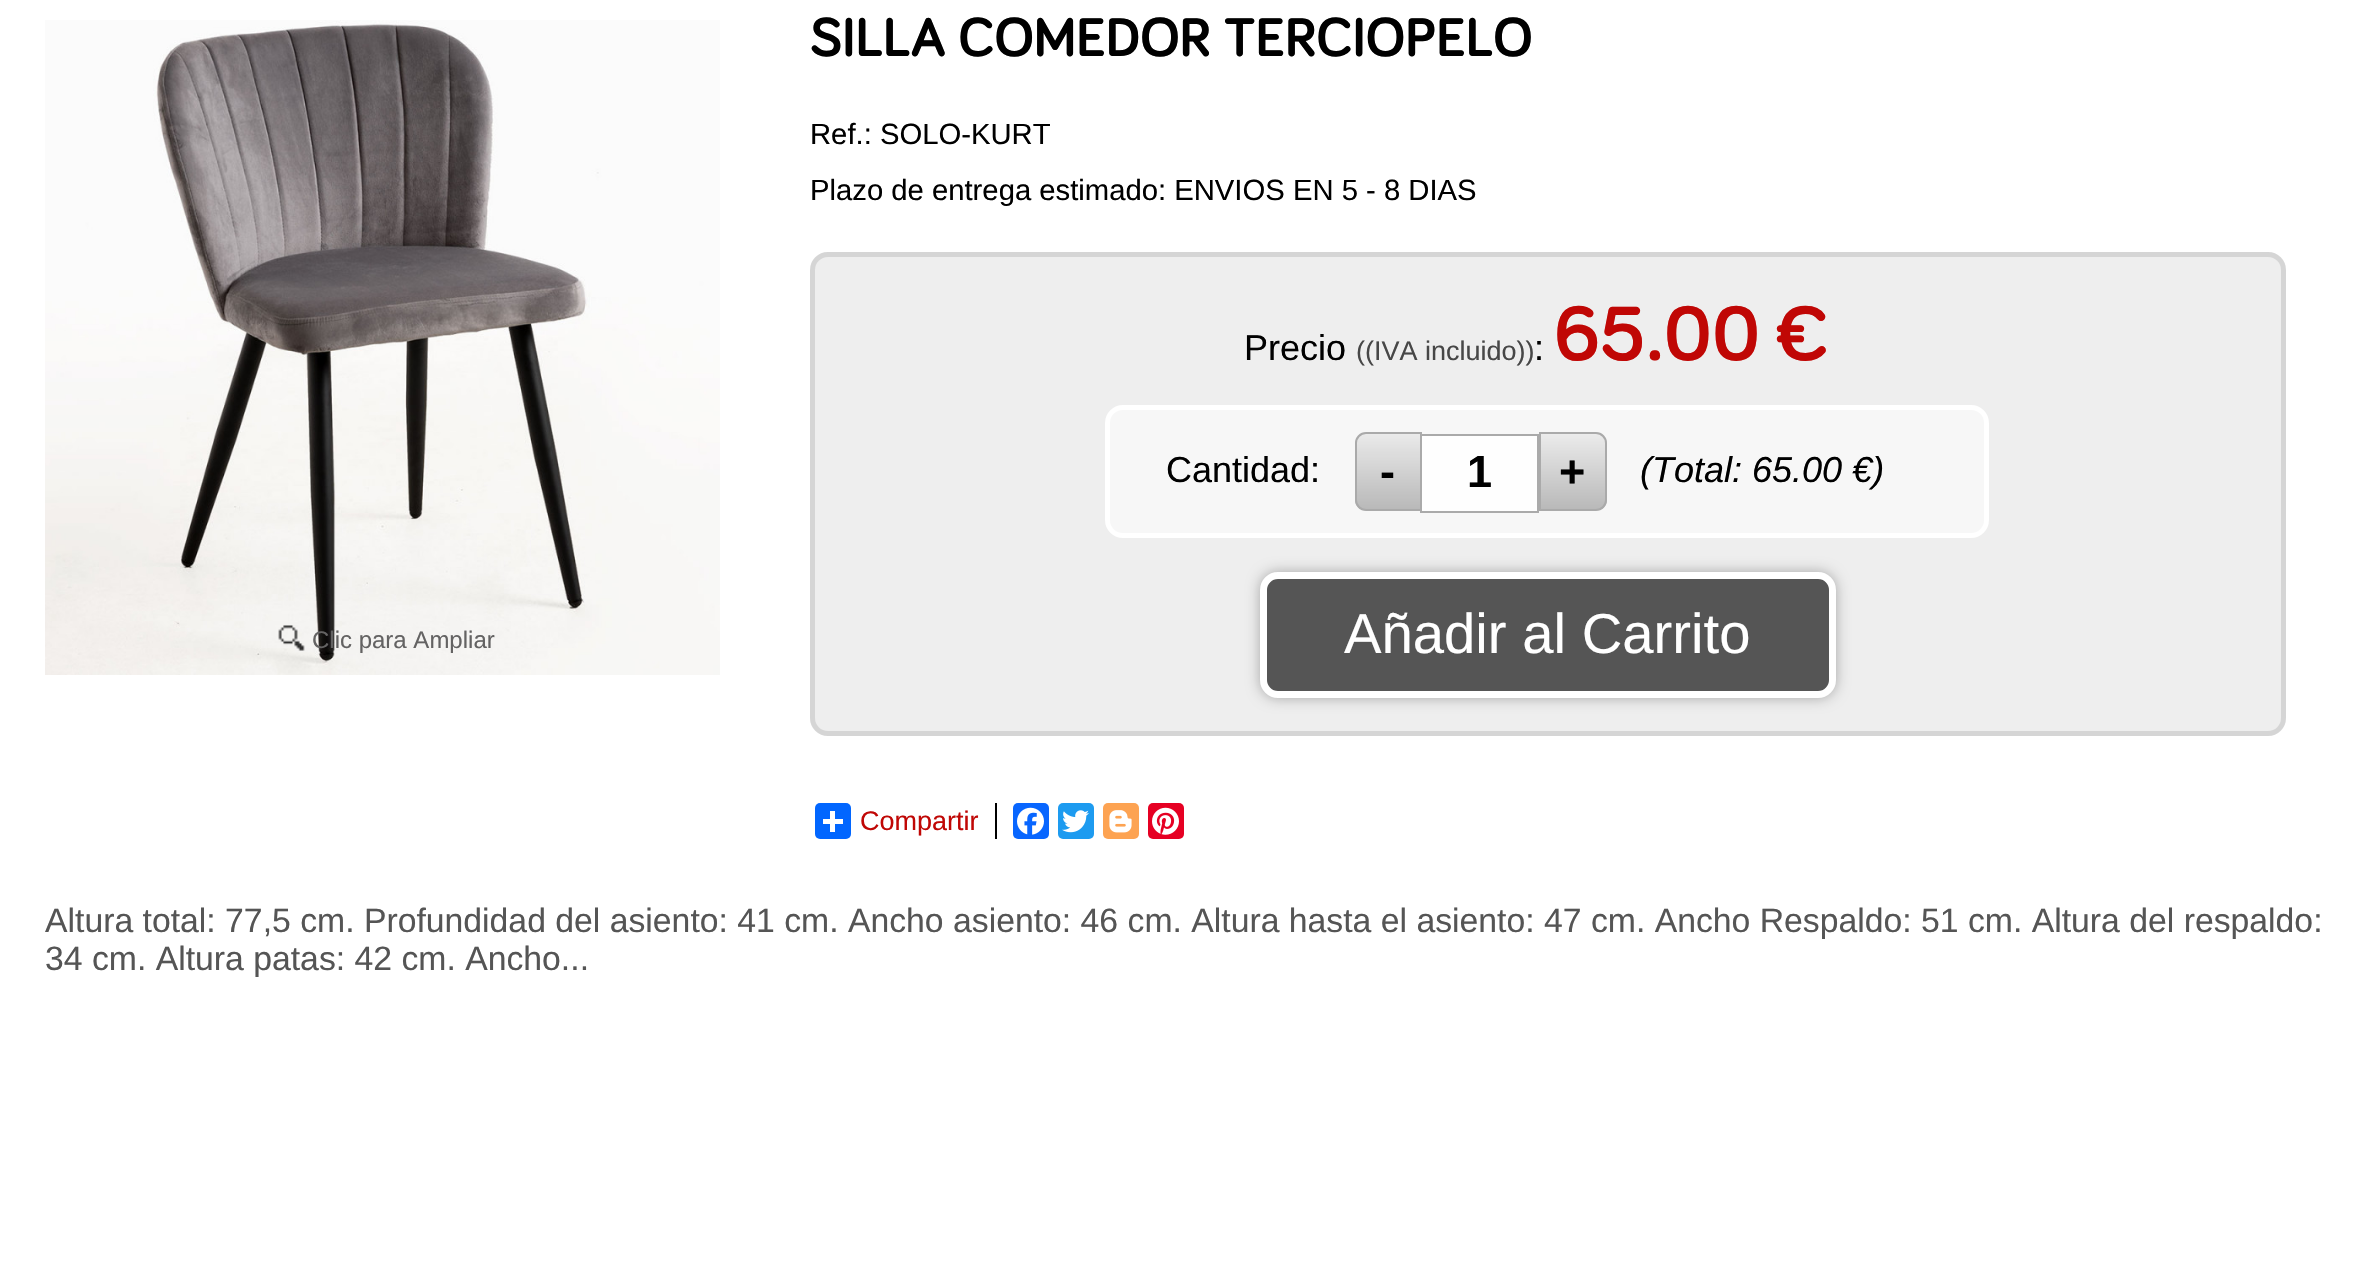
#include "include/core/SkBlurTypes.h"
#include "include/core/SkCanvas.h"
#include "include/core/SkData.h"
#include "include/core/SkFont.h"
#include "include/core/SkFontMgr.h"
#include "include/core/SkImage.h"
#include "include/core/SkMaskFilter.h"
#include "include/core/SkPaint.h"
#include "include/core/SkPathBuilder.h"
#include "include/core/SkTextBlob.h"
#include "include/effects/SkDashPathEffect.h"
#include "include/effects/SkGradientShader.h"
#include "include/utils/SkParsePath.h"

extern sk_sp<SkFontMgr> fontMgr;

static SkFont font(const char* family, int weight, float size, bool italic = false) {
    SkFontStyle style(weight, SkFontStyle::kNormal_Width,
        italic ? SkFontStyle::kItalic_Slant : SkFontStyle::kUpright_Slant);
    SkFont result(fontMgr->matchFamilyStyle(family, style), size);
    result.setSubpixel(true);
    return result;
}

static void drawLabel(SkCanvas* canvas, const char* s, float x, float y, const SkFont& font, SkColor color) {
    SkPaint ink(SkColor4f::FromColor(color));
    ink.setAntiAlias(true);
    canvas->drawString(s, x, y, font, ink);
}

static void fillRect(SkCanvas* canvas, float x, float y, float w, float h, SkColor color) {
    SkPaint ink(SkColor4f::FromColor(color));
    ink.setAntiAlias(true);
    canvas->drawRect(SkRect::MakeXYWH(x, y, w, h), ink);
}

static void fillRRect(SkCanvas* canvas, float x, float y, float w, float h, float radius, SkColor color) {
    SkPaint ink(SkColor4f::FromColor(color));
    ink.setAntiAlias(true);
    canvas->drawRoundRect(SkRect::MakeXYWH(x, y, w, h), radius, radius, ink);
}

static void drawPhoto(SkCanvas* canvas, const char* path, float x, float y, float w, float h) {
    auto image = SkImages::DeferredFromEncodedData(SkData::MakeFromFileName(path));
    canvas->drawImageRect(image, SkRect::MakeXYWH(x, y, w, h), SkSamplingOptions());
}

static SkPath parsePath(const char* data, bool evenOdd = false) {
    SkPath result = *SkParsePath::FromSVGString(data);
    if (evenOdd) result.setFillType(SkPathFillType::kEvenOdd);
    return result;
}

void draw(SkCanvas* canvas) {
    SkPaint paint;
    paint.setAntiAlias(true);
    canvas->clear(0xFFFFFFFF);
    drawPhoto(canvas, "assets/img1.png", 45, 20, 675, 655);
    drawPhoto(canvas, "assets/img2.png", 278, 625, 27, 26);
    SkFont font1 = font("Liberation Sans", 400, 24);
    drawLabel(canvas, "Clic para Ampliar", 312, 648, font1, 0xFF646363);
    SkFont font2 = font("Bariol", 700, 56.25f);
    drawLabel(canvas, "SILLA COMEDOR TERCIOPELO", 810, 56, font2, 0xFF000000);
    SkFont font3 = font("Liberation Sans", 400, 29.25f);
    drawLabel(canvas, "Ref.: SOLO-KURT", 810, 144, font3, 0xFF000000);
    drawLabel(canvas, "Plazo de entrega estimado: ENVIOS EN 5 - 8 DIAS", 810, 200, font3, 0xFF000000);
    fillRRect(canvas, 810, 252, 1476, 484, 18, 0xFFEEEEEE);
    paint.setStroke(true);
    paint.setStrokeWidth(5);
    paint.setColor(0x1A000000);
    canvas->drawRoundRect(SkRect::MakeXYWH(812.5f, 254.5f, 1471, 479), 15.5f, 15.5f, paint);
    SkFont font4 = font("Liberation Sans", 400, 36);
    drawLabel(canvas, "Precio", 1244, 360, font4, 0xFF000000);
    SkFont font5 = font("Liberation Sans", 400, 27);
    drawLabel(canvas, "((IVA incluido))", 1356, 360, font5, 0xFF474747);
    drawLabel(canvas, ":", 1534, 360, font4, 0xFF000000);
    SkFont font6 = font("Bariol", 700, 79);
    drawLabel(canvas, "65.00 €", 1554, 360, font6, 0xFFC00705);
    paint.setStroke(false);
    paint.setColor(0xFFF7F7F7);
    canvas->drawRoundRect(SkRect::MakeXYWH(1107.5f, 407.5f, 879, 128), 15.5f, 15.5f, paint);
    paint.setStroke(true);
    paint.setColor(0xFFFFFFFF);
    canvas->drawRoundRect(SkRect::MakeXYWH(1107.5f, 407.5f, 879, 128), 15.5f, 15.5f, paint);
    drawLabel(canvas, "Cantidad:", 1166, 482, font4, 0xFF000000);
    canvas->save();
    canvas->clipPath(parsePath("M1366 432H1422V511H1366C1360 511 1355 506 1355 500V443C1355 437 1360 432 1366 432Z"), true);
    paint.setStroke(false);
    {
        const SkColor colors[] = {0x0D000000, 0x40000000};
        const float stops[] = {0, 1};
        const SkPoint ends[] = {{1388, 434}, {1388, 509}};
        paint.setShader(SkGradientShader::MakeLinear(ends, colors, stops, 2, SkTileMode::kClamp));
        paint.setAlpha(255);
    }
    canvas->drawRect(SkRect::MakeXYWH(1355, 434, 65, 75), paint);
    canvas->restore();
    paint.setShader(nullptr);
    paint.setColor(0xFFFEFEFE);
    canvas->drawRect(SkRect::MakeXYWH(1421, 435, 117, 77), paint);
    paint.setStroke(true);
    paint.setStrokeWidth(2);
    paint.setColor(0xFFAAAAAA);
    canvas->drawRect(SkRect::MakeXYWH(1421, 435, 117, 77), paint);
    canvas->drawPath(parsePath("M1366 433H1421V510H1366C1360.5 510 1356 505.5 1356 500V443C1356 437.5 1360.5 433 1366 433Z"), paint);
    SkFont font7 = font("Liberation Sans", 700, 45);
    drawLabel(canvas, "-", 1380, 487, font7, 0xFF000000);
    drawLabel(canvas, "1", 1467, 487, font7, 0xFF000000);
    canvas->save();
    canvas->clipPath(parsePath("M1539 432H1596C1602 432 1607 437 1607 443V500C1607 506 1602 511 1596 511H1539Z"), true);
    paint.setStroke(false);
    {
        const SkColor colors[] = {0xFFEBEBEB, 0xFFB9B9B9};
        const float stops[] = {0, 1};
        const SkPoint ends[] = {{1573, 434}, {1573, 509}};
        paint.setShader(SkGradientShader::MakeLinear(ends, colors, stops, 2, SkTileMode::kClamp));
        paint.setAlpha(255);
    }
    canvas->drawRect(SkRect::MakeXYWH(1541, 434, 66, 75), paint);
    canvas->restore();
    paint.setStroke(true);
    paint.setShader(nullptr);
    paint.setColor(0xFFAAAAAA);
    canvas->drawPath(parsePath("M1540 433H1596C1601.5 433 1606 437.5 1606 443V500C1606 505.5 1601.5 510 1596 510H1540Z"), paint);
    drawLabel(canvas, "+", 1559, 487, font7, 0xFF000000);
    SkFont font8 = font("Liberation Sans", 400, 36, true);
    drawLabel(canvas, "(Total: 65.00 €)", 1640, 482, font8, 0xFF000000);
    paint.setStroke(false);
    paint.setColor(0x4D000000);
    paint.setMaskFilter(SkMaskFilter::MakeBlur(kNormal_SkBlurStyle, 7));
    canvas->drawRoundRect(SkRect::MakeXYWH(1260, 572, 576, 126), 18, 18, paint);
    paint.setMaskFilter(nullptr);
    paint.setColor(0xFF555555);
    canvas->drawRoundRect(SkRect::MakeXYWH(1263.5f, 575.5f, 569, 119), 14.5f, 14.5f, paint);
    paint.setStroke(true);
    paint.setStrokeWidth(7);
    paint.setColor(0xFFFFFFFF);
    canvas->drawRoundRect(SkRect::MakeXYWH(1263.5f, 575.5f, 569, 119), 14.5f, 14.5f, paint);
    SkFont font9 = font("Liberation Sans", 400, 56.25f);
    drawLabel(canvas, "Añadir al Carrito", 1344, 653, font9, 0xFFFFFFFF);
    fillRRect(canvas, 815, 803, 36, 36, 5, 0xFF0166FF);
    fillRect(canvas, 830, 811, 5, 21, 0xFFFFFFFF);
    fillRect(canvas, 823, 819, 20, 5, 0xFFFFFFFF);
    drawLabel(canvas, "Compartir", 860, 830, font5, 0xFFC00705);
    fillRect(canvas, 995, 803, 2, 36, 0xFF000000);
    fillRRect(canvas, 1013, 803, 36, 36, 5, 0xFF0866FF);
    drawPhoto(canvas, "assets/img3.png", 1017, 807, 27, 28);
    fillRRect(canvas, 1058, 803, 36, 36, 5, 0xFF1D9BF0);
    drawPhoto(canvas, "assets/img4.png", 1062, 810, 27, 23);
    fillRRect(canvas, 1103, 803, 36, 36, 5, 0xFFFDA352);
    drawPhoto(canvas, "assets/img5.png", 1109, 810, 23, 23);
    fillRRect(canvas, 1148, 803, 36, 36, 5, 0xFFE60023);
    drawPhoto(canvas, "assets/img6.png", 1152, 807, 27, 28);
    SkFont font10 = font("Liberation Sans", 400, 33.75f);
    drawLabel(canvas, "Altura total: 77,5 cm. Profundidad del asiento: 41 cm. Ancho asiento: 46 cm. Altura hasta el asiento: 47 cm. Ancho Respaldo: 51 cm. Altura del respaldo:", 45, 932, font10, 0xFF555555);
    drawLabel(canvas, "34 cm. Altura patas: 42 cm. Ancho...", 45, 970, font10, 0xFF555555);
}
